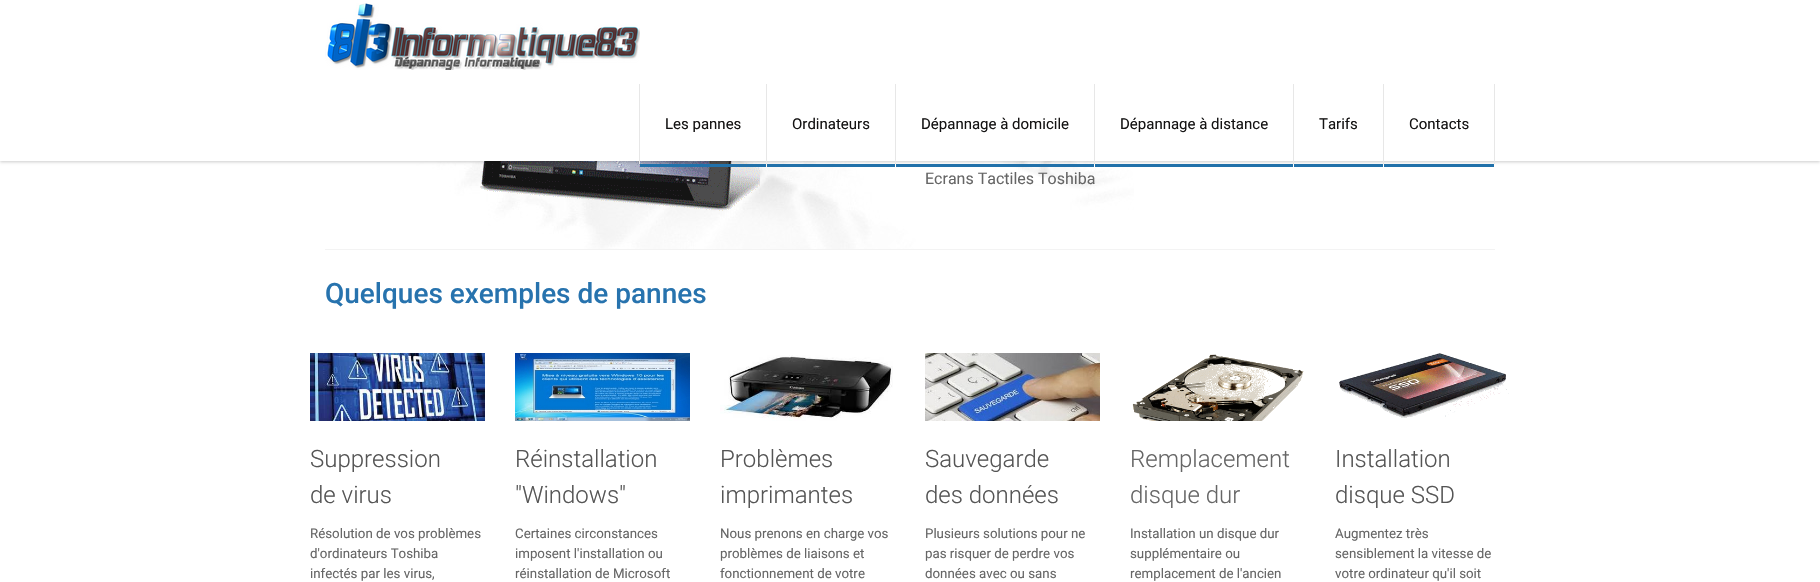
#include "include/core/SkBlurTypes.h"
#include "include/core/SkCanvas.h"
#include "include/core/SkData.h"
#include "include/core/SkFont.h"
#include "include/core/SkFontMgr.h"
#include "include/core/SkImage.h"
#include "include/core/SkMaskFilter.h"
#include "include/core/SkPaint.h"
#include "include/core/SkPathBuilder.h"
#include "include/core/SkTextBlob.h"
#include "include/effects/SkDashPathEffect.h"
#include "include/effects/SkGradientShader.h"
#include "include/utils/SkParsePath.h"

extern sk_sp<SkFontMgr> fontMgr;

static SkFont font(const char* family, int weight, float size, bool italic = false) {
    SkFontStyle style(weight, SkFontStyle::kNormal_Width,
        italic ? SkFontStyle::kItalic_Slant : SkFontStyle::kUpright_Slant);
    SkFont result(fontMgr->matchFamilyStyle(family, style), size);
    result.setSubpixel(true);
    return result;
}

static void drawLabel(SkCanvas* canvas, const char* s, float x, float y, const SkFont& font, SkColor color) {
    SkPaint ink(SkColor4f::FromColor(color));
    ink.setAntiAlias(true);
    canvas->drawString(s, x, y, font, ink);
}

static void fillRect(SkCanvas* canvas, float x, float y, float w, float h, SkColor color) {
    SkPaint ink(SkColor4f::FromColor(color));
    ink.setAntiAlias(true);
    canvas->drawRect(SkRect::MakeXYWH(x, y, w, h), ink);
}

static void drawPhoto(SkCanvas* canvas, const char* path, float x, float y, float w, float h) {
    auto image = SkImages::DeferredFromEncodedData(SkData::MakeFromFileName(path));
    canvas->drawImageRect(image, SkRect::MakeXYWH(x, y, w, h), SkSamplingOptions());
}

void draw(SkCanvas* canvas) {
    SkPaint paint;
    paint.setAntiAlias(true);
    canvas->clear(0xFFFFFFFF);
    drawPhoto(canvas, "assets/img2.png", 325, 161, 809, 88);
    drawPhoto(canvas, "assets/img3.png", 480, 161, 280, 50);
    paint.setColor(0x33000000);
    paint.setMaskFilter(SkMaskFilter::MakeBlur(kNormal_SkBlurStyle, 1.5f));
    canvas->drawRect(SkRect::MakeXYWH(0, 1, 1820, 161), paint);
    paint.setMaskFilter(nullptr);
    fillRect(canvas, 0, 0, 1820, 161, 0xFFFFFFFF);
    drawPhoto(canvas, "assets/img1.png", 325, 3, 315, 67);
    fillRect(canvas, 1494, 84, 1, 80, 0xFFE7E7E7);
    fillRect(canvas, 639, 84, 1, 80, 0xFFE7E7E7);
    fillRect(canvas, 640, 164, 126, 3, 0xFF2171AA);
    SkFont font1 = font("Roboto", 400, 15);
    drawLabel(canvas, "Les pannes", 665, 129, font1, 0xFF151414);
    fillRect(canvas, 766, 84, 1, 80, 0xFFE7E7E7);
    fillRect(canvas, 767, 164, 128, 3, 0xFF2171AA);
    drawLabel(canvas, "Ordinateurs", 792, 129, font1, 0xFF151414);
    fillRect(canvas, 895, 84, 1, 80, 0xFFE7E7E7);
    fillRect(canvas, 896, 164, 198, 3, 0xFF2171AA);
    drawLabel(canvas, "Dépannage à domicile", 921, 129, font1, 0xFF151414);
    fillRect(canvas, 1094, 84, 1, 80, 0xFFE7E7E7);
    fillRect(canvas, 1095, 164, 198, 3, 0xFF2171AA);
    drawLabel(canvas, "Dépannage à distance", 1120, 129, font1, 0xFF151414);
    fillRect(canvas, 1293, 84, 1, 80, 0xFFE7E7E7);
    fillRect(canvas, 1294, 164, 89, 3, 0xFF2171AA);
    drawLabel(canvas, "Tarifs", 1319, 129, font1, 0xFF151414);
    fillRect(canvas, 1383, 84, 1, 80, 0xFFE7E7E7);
    fillRect(canvas, 1384, 164, 110, 3, 0xFF2171AA);
    drawLabel(canvas, "Contacts", 1409, 129, font1, 0xFF151414);
    fillRect(canvas, 325, 249, 1170, 1, 0xFFF3F3F3);
    SkFont font2 = font("Roboto", 400, 16);
    drawLabel(canvas, "Ecrans Tactiles Toshiba", 925, 184, font2, 0xFF666666);
    SkFont font3 = font("Roboto", 500, 28);
    drawLabel(canvas, "Quelques exemples de pannes", 325, 303, font3, 0xFF2773AE);
    drawPhoto(canvas, "assets/img4.png", 310, 353, 175, 68);
    SkFont font4 = font("Roboto", 300, 24);
    drawLabel(canvas, "Suppression", 310, 467, font4, 0xFF555555);
    drawLabel(canvas, "de virus", 310, 503, font4, 0xFF555555);
    SkFont font5 = font("Roboto", 400, 13.3f);
    drawLabel(canvas, "Résolution de vos problèmes", 310, 538, font5, 0xFF666666);
    drawLabel(canvas, "d'ordinateurs Toshiba", 310, 558, font5, 0xFF666666);
    drawLabel(canvas, "infectés par les virus,", 310, 578, font5, 0xFF666666);
    drawPhoto(canvas, "assets/img5.png", 515, 353, 175, 68);
    drawLabel(canvas, "Réinstallation", 515, 467, font4, 0xFF555555);
    drawLabel(canvas, "\"Windows\"", 515, 503, font4, 0xFF555555);
    drawLabel(canvas, "Certaines circonstances", 515, 538, font5, 0xFF666666);
    drawLabel(canvas, "imposent l'installation ou", 515, 558, font5, 0xFF666666);
    drawLabel(canvas, "réinstallation de Microsoft", 515, 578, font5, 0xFF666666);
    drawPhoto(canvas, "assets/img6.png", 720, 355, 173, 66);
    drawLabel(canvas, "Problèmes", 720, 467, font4, 0xFF555555);
    drawLabel(canvas, "imprimantes", 720, 503, font4, 0xFF555555);
    drawLabel(canvas, "Nous prenons en charge vos", 720, 538, font5, 0xFF666666);
    drawLabel(canvas, "problèmes de liaisons et", 720, 558, font5, 0xFF666666);
    drawLabel(canvas, "fonctionnement de votre", 720, 578, font5, 0xFF666666);
    drawPhoto(canvas, "assets/img7.png", 925, 353, 175, 68);
    drawLabel(canvas, "Sauvegarde", 925, 467, font4, 0xFF555555);
    drawLabel(canvas, "des données", 925, 503, font4, 0xFF555555);
    drawLabel(canvas, "Plusieurs solutions pour ne", 925, 538, font5, 0xFF666666);
    drawLabel(canvas, "pas risquer de perdre vos", 925, 558, font5, 0xFF666666);
    drawLabel(canvas, "données avec ou sans", 925, 578, font5, 0xFF666666);
    drawPhoto(canvas, "assets/img8.png", 1132, 354, 172, 67);
    drawLabel(canvas, "Remplacement", 1130, 467, font4, 0xFF666666);
    drawLabel(canvas, "disque dur", 1130, 503, font4, 0xFF666666);
    drawLabel(canvas, "Installation un disque dur", 1130, 538, font5, 0xFF666666);
    drawLabel(canvas, "supplémentaire ou", 1130, 558, font5, 0xFF666666);
    drawLabel(canvas, "remplacement de l'ancien", 1130, 578, font5, 0xFF666666);
    drawPhoto(canvas, "assets/img9.png", 1339, 353, 170, 65);
    drawLabel(canvas, "Installation", 1335, 467, font4, 0xFF555555);
    drawLabel(canvas, "disque SSD", 1335, 503, font4, 0xFF555555);
    drawLabel(canvas, "Augmentez très", 1335, 538, font5, 0xFF666666);
    drawLabel(canvas, "sensiblement la vitesse de", 1335, 558, font5, 0xFF666666);
    drawLabel(canvas, "votre ordinateur qu'il soit", 1335, 578, font5, 0xFF666666);
}
